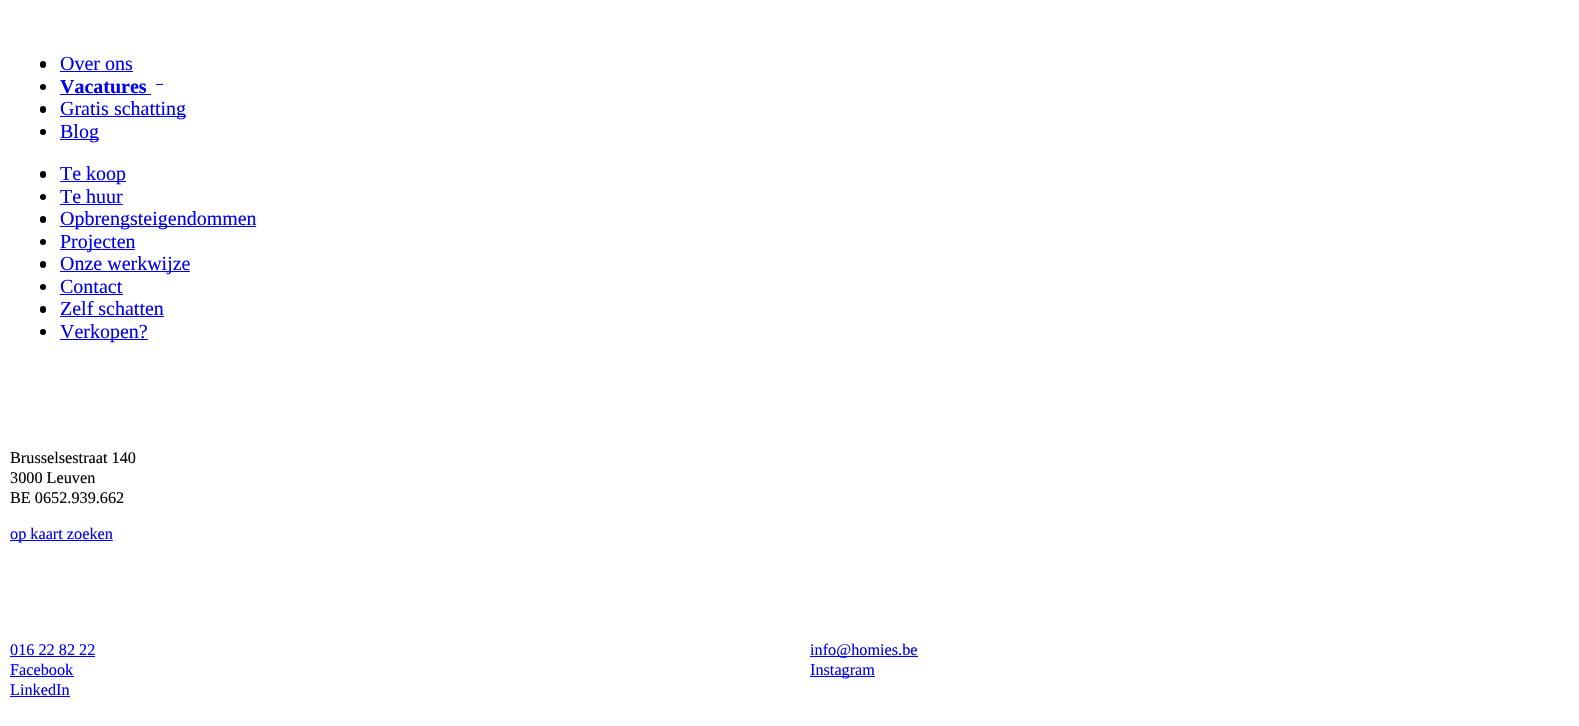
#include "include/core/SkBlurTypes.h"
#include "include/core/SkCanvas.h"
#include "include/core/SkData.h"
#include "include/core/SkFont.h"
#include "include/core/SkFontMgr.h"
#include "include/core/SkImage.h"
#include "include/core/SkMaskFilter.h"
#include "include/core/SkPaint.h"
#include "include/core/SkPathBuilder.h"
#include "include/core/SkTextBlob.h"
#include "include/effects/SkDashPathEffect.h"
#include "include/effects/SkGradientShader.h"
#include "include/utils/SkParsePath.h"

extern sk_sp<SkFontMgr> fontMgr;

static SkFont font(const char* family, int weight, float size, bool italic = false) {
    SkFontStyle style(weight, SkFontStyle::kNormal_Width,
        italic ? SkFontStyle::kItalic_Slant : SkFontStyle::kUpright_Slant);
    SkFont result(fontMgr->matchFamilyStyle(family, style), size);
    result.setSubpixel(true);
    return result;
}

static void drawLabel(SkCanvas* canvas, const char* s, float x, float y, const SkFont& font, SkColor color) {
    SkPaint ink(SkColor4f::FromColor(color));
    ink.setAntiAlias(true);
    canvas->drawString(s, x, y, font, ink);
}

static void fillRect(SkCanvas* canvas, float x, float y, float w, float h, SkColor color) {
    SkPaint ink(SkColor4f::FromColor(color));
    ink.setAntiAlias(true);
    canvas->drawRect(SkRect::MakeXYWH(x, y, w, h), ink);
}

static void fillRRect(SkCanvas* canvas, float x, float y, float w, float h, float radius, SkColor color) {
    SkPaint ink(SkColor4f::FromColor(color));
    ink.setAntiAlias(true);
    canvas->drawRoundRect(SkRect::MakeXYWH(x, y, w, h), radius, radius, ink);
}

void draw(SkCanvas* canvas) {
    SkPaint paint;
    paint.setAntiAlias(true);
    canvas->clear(0xFFFFFFFF);
    fillRRect(canvas, 40, 61, 6, 7, 3, 0xFF000000);
    SkFont font1 = font("Liberation Serif", 400, 20);
    drawLabel(canvas, "Over ons", 60, 70, font1, 0xFF0000EE);
    fillRect(canvas, 60, 71, 73, 1, 0xFF0000EE);
    paint.setColor(0xFF000000);
    canvas->drawCircle(43, 87, 3, paint);
    SkFont font2 = font("Liberation Serif", 700, 20);
    drawLabel(canvas, "Vacatures", 60, 93, font2, 0xFF0000EE);
    fillRect(canvas, 60, 94, 91, 1, 0xFF0000EE);
    fillRect(canvas, 156, 84, 7, 1, 0xFF0000EE);
    fillRRect(canvas, 40, 106, 6, 7, 3, 0xFF000000);
    fillRect(canvas, 60, 116, 126, 1, 0xFF0000EE);
    drawLabel(canvas, "Gratis schatting", 60, 115, font1, 0xFF0000EE);
    canvas->drawCircle(43, 132, 3, paint);
    fillRect(canvas, 60, 139, 39, 1, 0xFF0000EE);
    drawLabel(canvas, "Blog", 60, 138, font1, 0xFF0000EE);
    fillRRect(canvas, 40, 171, 6, 7, 3, 0xFF000000);
    fillRect(canvas, 60, 181, 66, 1, 0xFF0000EE);
    drawLabel(canvas, "Te koop", 60, 180, font1, 0xFF0000EE);
    canvas->drawCircle(43, 197, 3, paint);
    drawLabel(canvas, "Te huur", 60, 203, font1, 0xFF0000EE);
    fillRect(canvas, 60, 204, 63, 1, 0xFF0000EE);
    fillRRect(canvas, 40, 216, 6, 7, 3, 0xFF000000);
    fillRect(canvas, 60, 226, 196, 1, 0xFF0000EE);
    drawLabel(canvas, "Opbrengsteigendommen", 60, 225, font1, 0xFF0000EE);
    canvas->drawCircle(43, 242, 3, paint);
    fillRect(canvas, 60, 249, 75, 1, 0xFF0000EE);
    drawLabel(canvas, "Projecten", 60, 248, font1, 0xFF0000EE);
    fillRRect(canvas, 40, 261, 6, 7, 3, 0xFF000000);
    fillRect(canvas, 60, 271, 130, 1, 0xFF0000EE);
    drawLabel(canvas, "Onze werkwijze", 60, 270, font1, 0xFF0000EE);
    canvas->drawCircle(43, 287, 3, paint);
    drawLabel(canvas, "Contact", 60, 293, font1, 0xFF0000EE);
    fillRect(canvas, 60, 294, 63, 1, 0xFF0000EE);
    fillRRect(canvas, 40, 306, 6, 7, 3, 0xFF000000);
    drawLabel(canvas, "Zelf schatten", 60, 315, font1, 0xFF0000EE);
    fillRect(canvas, 60, 316, 104, 1, 0xFF0000EE);
    canvas->drawCircle(43, 332, 3, paint);
    fillRect(canvas, 60, 339, 88, 1, 0xFF0000EE);
    drawLabel(canvas, "Verkopen?", 60, 338, font1, 0xFF0000EE);
    SkFont font3 = font("Liberation Serif", 400, 16.25f);
    drawLabel(canvas, "Brusselsestraat 140", 10, 463, font3, 0xFF000000);
    drawLabel(canvas, "3000 Leuven", 10, 483, font3, 0xFF000000);
    drawLabel(canvas, "BE 0652.939.662", 10, 503, font3, 0xFF000000);
    fillRect(canvas, 10, 540, 103, 1, 0xFF0000EE);
    drawLabel(canvas, "op kaart zoeken", 10, 539, font3, 0xFF0000EE);
    drawLabel(canvas, "016 22 82 22", 10, 655, font3, 0xFF0000EE);
    fillRect(canvas, 10, 656, 85, 1, 0xFF0000EE);
    drawLabel(canvas, "Facebook", 10, 675, font3, 0xFF0000EE);
    fillRect(canvas, 10, 676, 64, 1, 0xFF0000EE);
    drawLabel(canvas, "LinkedIn", 10, 695, font3, 0xFF0000EE);
    fillRect(canvas, 10, 696, 60, 1, 0xFF0000EE);
    fillRect(canvas, 810, 656, 108, 1, 0xFF0000EE);
    drawLabel(canvas, "info@homies.be", 810, 655, font3, 0xFF0000EE);
    fillRect(canvas, 810, 676, 65, 1, 0xFF0000EE);
    drawLabel(canvas, "Instagram", 810, 675, font3, 0xFF0000EE);
}
